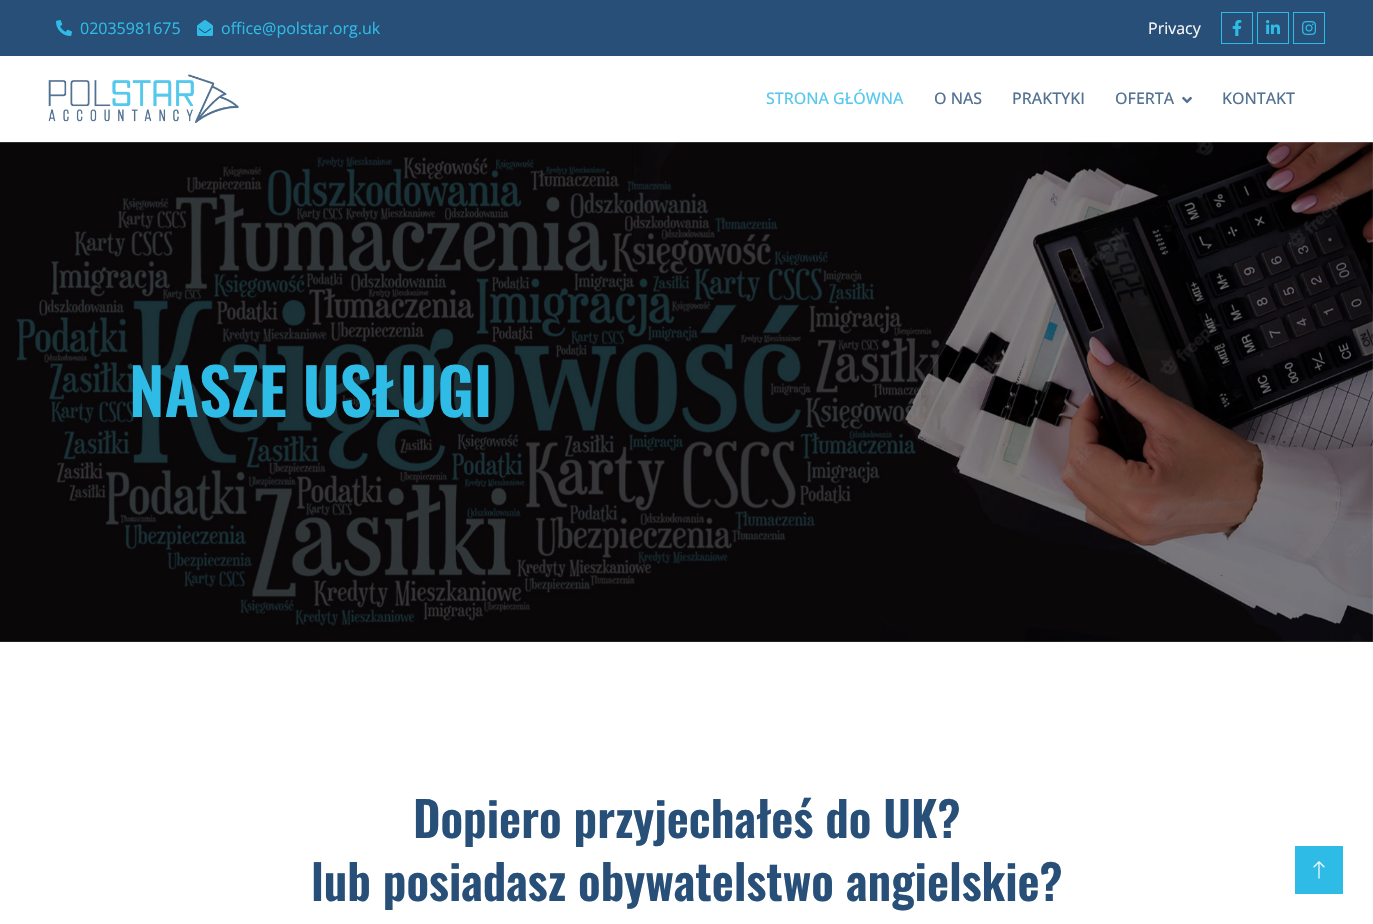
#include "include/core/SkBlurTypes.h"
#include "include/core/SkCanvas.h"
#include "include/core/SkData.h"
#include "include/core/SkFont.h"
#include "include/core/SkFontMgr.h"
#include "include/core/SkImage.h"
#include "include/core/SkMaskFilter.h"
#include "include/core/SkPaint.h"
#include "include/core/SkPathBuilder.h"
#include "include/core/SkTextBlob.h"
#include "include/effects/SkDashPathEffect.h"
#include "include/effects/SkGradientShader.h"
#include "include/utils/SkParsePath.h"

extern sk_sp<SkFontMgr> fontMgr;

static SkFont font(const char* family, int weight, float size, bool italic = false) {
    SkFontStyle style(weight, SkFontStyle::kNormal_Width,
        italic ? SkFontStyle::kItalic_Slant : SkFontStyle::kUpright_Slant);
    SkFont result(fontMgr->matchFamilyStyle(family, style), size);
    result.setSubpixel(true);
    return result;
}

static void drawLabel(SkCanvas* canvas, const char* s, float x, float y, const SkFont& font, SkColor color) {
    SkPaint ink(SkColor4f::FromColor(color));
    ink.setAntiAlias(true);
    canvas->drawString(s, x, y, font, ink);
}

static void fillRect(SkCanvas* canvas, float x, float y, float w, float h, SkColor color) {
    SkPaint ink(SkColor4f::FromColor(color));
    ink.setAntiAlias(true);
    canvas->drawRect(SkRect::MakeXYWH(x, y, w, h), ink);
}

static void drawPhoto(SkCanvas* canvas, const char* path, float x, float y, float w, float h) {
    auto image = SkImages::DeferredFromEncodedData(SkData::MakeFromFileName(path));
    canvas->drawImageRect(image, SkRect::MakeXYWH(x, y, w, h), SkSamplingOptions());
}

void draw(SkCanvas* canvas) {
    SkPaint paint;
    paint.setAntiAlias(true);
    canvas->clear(0xFFFFFFFF);
    fillRect(canvas, 0, 0, 1373, 56, 0xFF284F77);
    drawPhoto(canvas, "assets/img1.png", 56, 20, 16, 16);
    SkFont font1 = font("Open Sans", 400, 16);
    drawLabel(canvas, "02035981675", 80, 34, font1, 0xFF2EBCE7);
    drawPhoto(canvas, "assets/img2.png", 197, 20, 16, 16);
    drawLabel(canvas, "office@polstar.org.uk", 221, 34, font1, 0xFF2EBCE7);
    drawLabel(canvas, "Privacy", 1148, 34, font1, 0xFFF8F8F8);
    paint.setStroke(true);
    paint.setStrokeWidth(1);
    paint.setColor(0xFF2EBCE7);
    canvas->drawRect(SkRect::MakeXYWH(1221.5f, 12.5f, 31, 31), paint);
    drawPhoto(canvas, "assets/img3.png", 1232, 20, 10, 16);
    canvas->drawRect(SkRect::MakeXYWH(1257.5f, 12.5f, 31, 31), paint);
    drawPhoto(canvas, "assets/img4.png", 1266, 20, 14, 14);
    canvas->drawRect(SkRect::MakeXYWH(1293.5f, 12.5f, 31, 31), paint);
    drawPhoto(canvas, "assets/img5.png", 1302, 21, 14, 14);
    drawPhoto(canvas, "assets/img6.png", 48, 74, 191, 49);
    SkFont font2 = font("Open Sans", 500, 16);
    drawLabel(canvas, "STRONA GŁÓWNA", 766, 104, font2, 0xFF58C9EC);
    drawLabel(canvas, "O NAS", 934, 104, font2, 0xFF537292);
    drawLabel(canvas, "PRAKTYKI", 1012, 104, font2, 0xFF537292);
    drawLabel(canvas, "OFERTA", 1115, 104, font2, 0xFF537292);
    drawPhoto(canvas, "assets/img7.png", 1182, 96, 10, 8);
    drawLabel(canvas, "KONTAKT", 1222, 104, font2, 0xFF537292);
    drawPhoto(canvas, "assets/img8.png", 0, 142, 1373, 500);
    SkFont font3 = font("Oswald", 600, 64);
    drawLabel(canvas, "NASZE USŁUGI", 129, 417, font3, 0xFF2EBCE7);
    SkFont font4 = font("Oswald", 600, 48);
    drawLabel(canvas, "Dopiero przyjechałeś do UK?", 413, 838, font4, 0xFF284F77);
    drawLabel(canvas, "lub posiadasz obywatelstwo angielskie?", 311, 901, font4, 0xFF284F77);
    fillRect(canvas, 1295, 846, 48, 48, 0xFF2EBCE7);
    drawPhoto(canvas, "assets/img9.png", 1313, 861, 12, 18);
}
